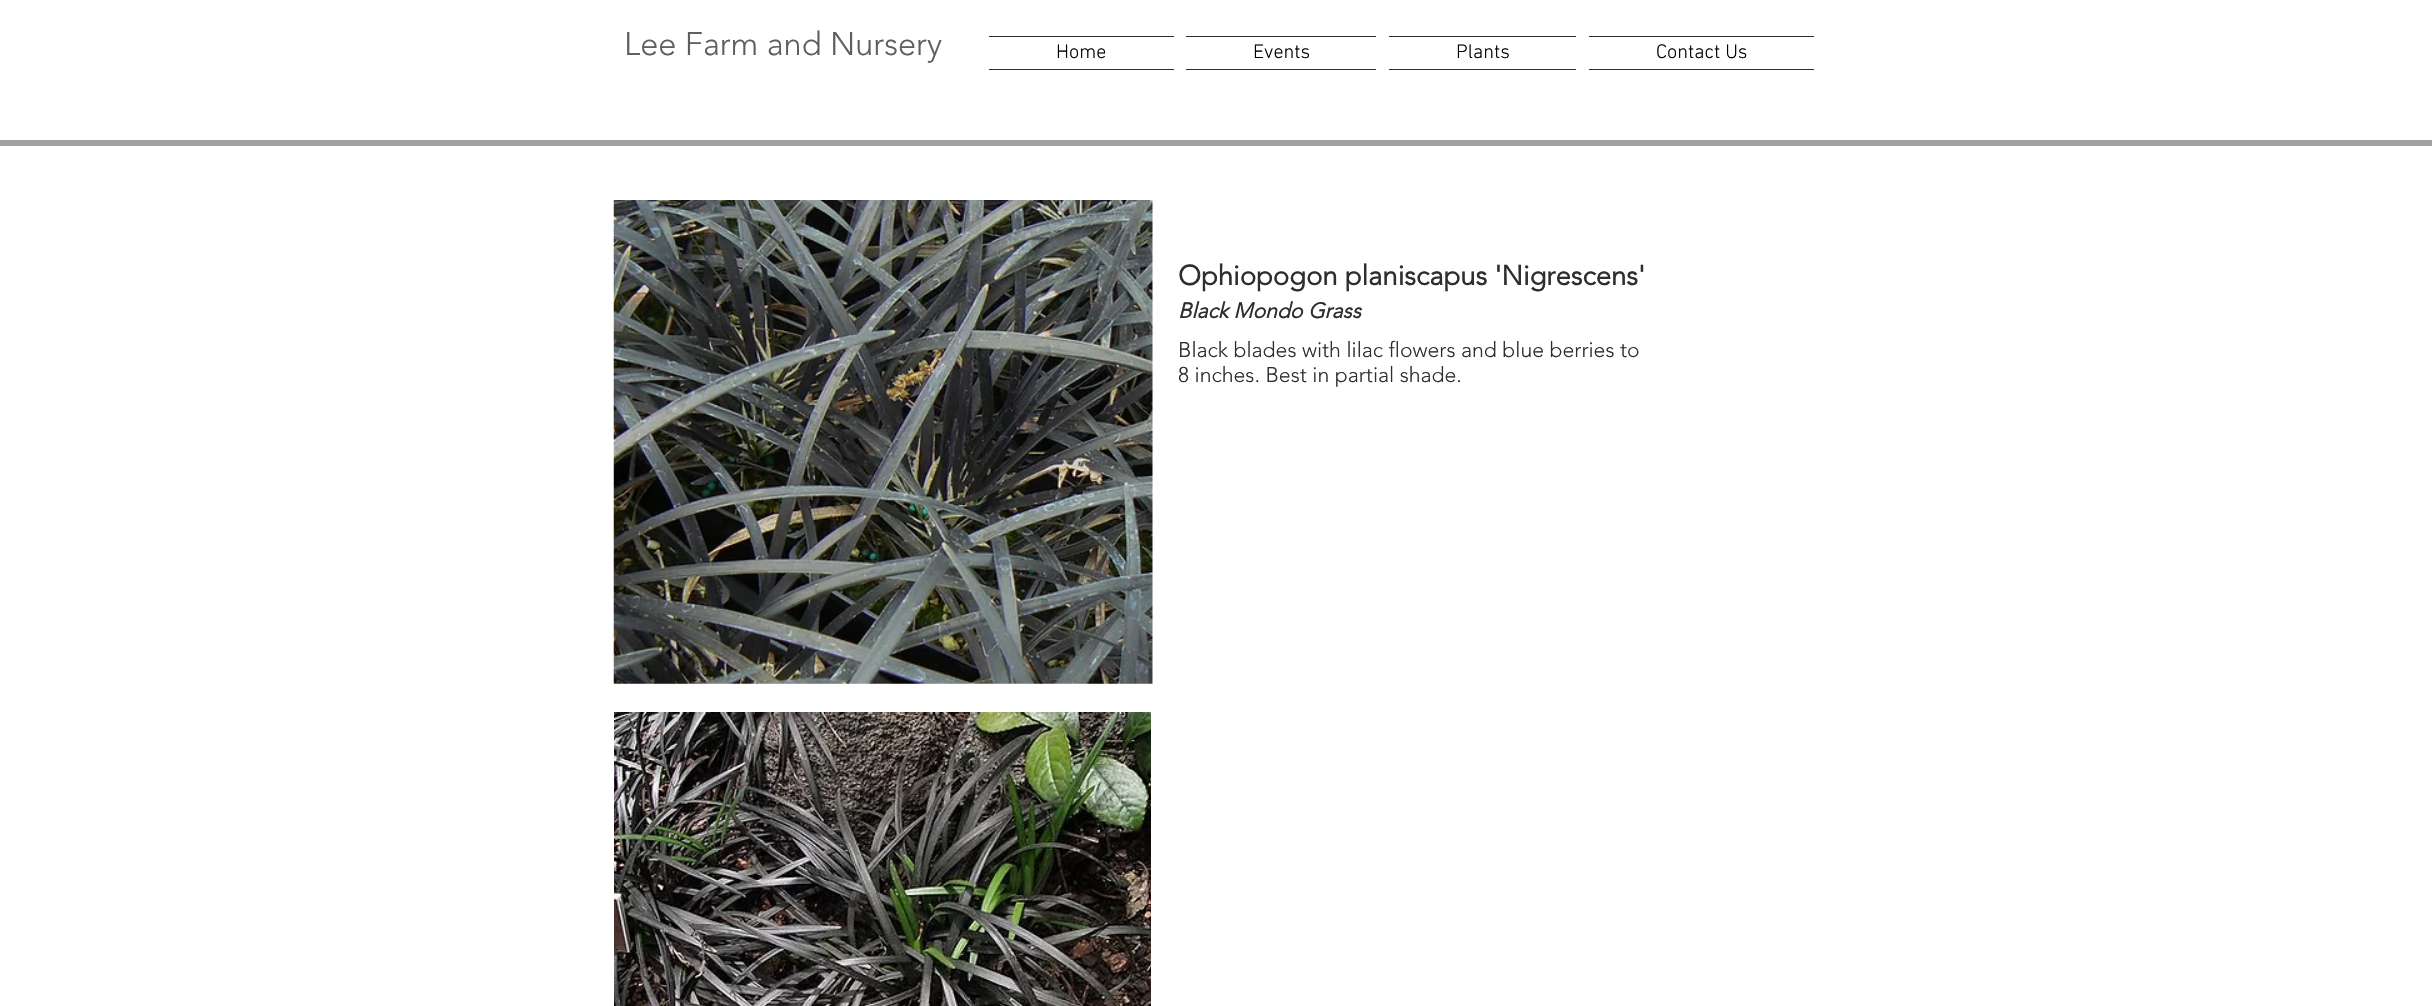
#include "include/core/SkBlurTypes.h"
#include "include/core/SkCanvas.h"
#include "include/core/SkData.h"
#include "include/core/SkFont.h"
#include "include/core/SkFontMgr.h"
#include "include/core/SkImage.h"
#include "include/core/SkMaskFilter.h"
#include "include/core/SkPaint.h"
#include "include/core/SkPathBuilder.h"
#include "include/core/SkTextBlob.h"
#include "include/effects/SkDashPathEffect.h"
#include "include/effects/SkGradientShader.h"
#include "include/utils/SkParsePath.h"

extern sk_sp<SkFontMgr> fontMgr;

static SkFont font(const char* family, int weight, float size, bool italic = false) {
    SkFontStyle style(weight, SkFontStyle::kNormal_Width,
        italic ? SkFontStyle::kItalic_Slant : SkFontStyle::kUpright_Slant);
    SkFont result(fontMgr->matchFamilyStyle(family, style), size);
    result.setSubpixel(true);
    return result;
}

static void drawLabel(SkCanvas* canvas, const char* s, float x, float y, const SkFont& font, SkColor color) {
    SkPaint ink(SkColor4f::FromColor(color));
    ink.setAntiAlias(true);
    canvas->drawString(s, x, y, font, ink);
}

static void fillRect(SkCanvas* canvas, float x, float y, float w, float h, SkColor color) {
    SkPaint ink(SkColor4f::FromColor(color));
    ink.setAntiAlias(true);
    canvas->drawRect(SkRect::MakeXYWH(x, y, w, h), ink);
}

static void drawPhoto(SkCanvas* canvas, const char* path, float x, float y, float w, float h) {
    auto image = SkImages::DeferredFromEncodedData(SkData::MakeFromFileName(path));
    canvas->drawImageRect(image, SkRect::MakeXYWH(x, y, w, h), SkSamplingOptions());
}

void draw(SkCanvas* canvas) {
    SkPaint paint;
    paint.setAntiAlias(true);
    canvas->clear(0xFFFFFFFF);
    SkFont font1 = font("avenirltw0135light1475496", 300, 32.5f);
    drawLabel(canvas, "Lee Farm and Nursery", 624, 55, font1, 0xFF605E5E);
    fillRect(canvas, 989, 36, 185, 1, 0xFF2F2E2E);
    fillRect(canvas, 989, 69, 185, 1, 0xFF2F2E2E);
    SkFont font2 = font("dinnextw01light", 300, 20);
    drawLabel(canvas, "Home", 1056, 58, font2, 0xFF000000);
    fillRect(canvas, 1186, 36, 190, 1, 0xFF2F2E2E);
    fillRect(canvas, 1186, 69, 190, 1, 0xFF2F2E2E);
    drawLabel(canvas, "Events", 1253, 58, font2, 0xFF000000);
    fillRect(canvas, 1389, 36, 187, 1, 0xFF2F2E2E);
    fillRect(canvas, 1389, 69, 187, 1, 0xFF2F2E2E);
    drawLabel(canvas, "Plants", 1456, 58, font2, 0xFF000000);
    fillRect(canvas, 1589, 36, 225, 1, 0xFF2F2E2E);
    fillRect(canvas, 1589, 69, 225, 1, 0xFF2F2E2E);
    drawLabel(canvas, "Contact Us", 1656, 58, font2, 0xFF000000);
    fillRect(canvas, 0, 140, 2432, 6, 0xFFA0A09F);
    drawPhoto(canvas, "assets/img1.png", 613, 200, 540, 484);
    SkFont font3 = font("avenirltw0135light1475496", 700, 27.5f);
    drawLabel(canvas, "Ophiopogon planiscapus 'Nigrescens'", 1178, 285, font3, 0xFF2F2E2E);
    SkFont font4 = font("avenirltw0135light1475496", 700, 21.25f, true);
    drawLabel(canvas, "Black Mondo Grass", 1178, 318, font4, 0xFF2F2E2E);
    SkFont font5 = font("avenirltw0135light1475496", 300, 21.25f);
    drawLabel(canvas, "Black blades with lilac flowers and blue berries to", 1178, 357, font5, 0xFF2F2E2E);
    drawLabel(canvas, "8 inches. Best in partial shade.", 1178, 382, font5, 0xFF2F2E2E);
    drawPhoto(canvas, "assets/img2.png", 614, 712, 537, 294);
}
